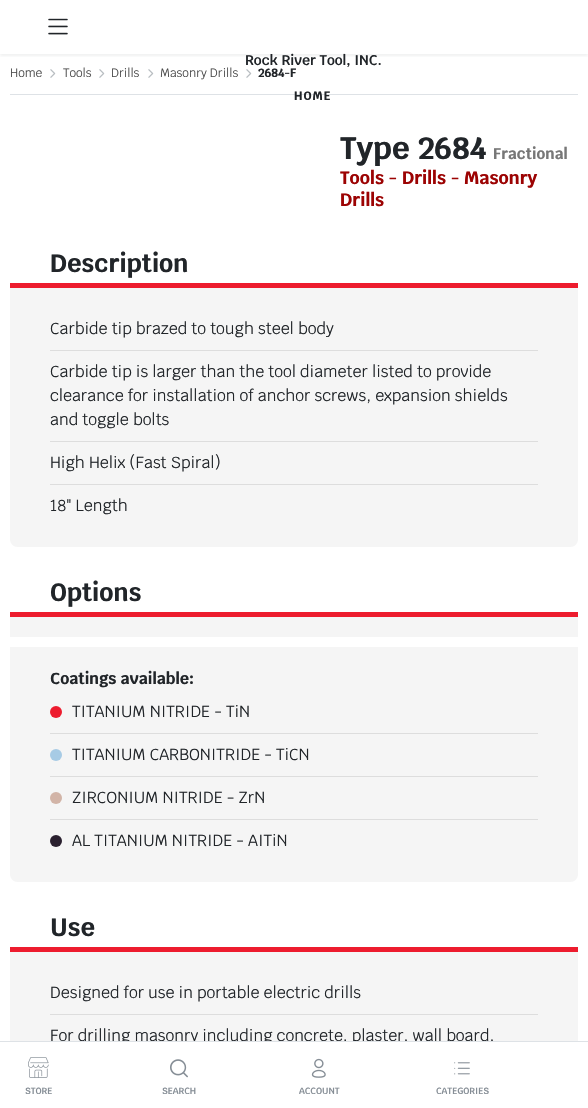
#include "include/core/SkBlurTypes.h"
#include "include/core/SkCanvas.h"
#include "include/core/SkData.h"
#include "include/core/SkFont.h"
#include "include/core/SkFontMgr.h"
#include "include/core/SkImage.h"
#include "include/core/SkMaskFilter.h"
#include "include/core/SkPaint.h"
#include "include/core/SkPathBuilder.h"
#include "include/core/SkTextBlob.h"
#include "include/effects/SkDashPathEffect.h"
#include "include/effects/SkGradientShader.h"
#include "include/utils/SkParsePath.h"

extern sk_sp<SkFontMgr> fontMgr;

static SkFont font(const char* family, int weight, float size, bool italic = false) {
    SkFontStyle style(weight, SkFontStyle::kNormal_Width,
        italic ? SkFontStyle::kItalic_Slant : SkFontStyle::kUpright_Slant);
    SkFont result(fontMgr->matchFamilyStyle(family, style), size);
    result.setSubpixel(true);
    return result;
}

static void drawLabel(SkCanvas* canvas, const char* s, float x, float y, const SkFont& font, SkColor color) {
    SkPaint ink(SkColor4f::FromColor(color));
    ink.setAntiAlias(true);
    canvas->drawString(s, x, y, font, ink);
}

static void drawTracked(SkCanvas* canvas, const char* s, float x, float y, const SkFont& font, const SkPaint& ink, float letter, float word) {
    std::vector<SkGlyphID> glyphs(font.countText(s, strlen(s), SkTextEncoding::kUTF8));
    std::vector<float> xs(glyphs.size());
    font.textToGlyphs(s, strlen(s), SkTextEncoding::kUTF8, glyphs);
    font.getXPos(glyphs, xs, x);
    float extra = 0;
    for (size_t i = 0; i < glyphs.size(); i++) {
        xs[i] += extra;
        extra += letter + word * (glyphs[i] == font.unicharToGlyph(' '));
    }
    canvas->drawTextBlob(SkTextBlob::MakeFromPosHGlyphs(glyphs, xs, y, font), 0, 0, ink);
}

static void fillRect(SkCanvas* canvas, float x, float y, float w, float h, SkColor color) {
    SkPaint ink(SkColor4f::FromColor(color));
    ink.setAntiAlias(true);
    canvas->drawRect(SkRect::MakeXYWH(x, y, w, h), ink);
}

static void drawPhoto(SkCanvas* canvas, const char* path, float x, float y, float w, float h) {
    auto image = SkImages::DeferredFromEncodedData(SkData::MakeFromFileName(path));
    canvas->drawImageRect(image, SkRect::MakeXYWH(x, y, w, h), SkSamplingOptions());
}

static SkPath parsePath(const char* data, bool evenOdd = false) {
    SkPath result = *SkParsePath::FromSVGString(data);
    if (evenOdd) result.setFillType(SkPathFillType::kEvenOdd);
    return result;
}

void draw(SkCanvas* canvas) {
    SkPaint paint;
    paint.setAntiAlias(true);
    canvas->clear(0xFFFFFFFF);
    canvas->save();
    canvas->clipRect(SkRect::MakeXYWH(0, 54, 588, 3));
    paint.setColor(0x12212529);
    paint.setMaskFilter(SkMaskFilter::MakeBlur(kNormal_SkBlurStyle, 1.5f));
    canvas->drawRect(SkRect::MakeXYWH(0, 2, 588, 54), paint);
    paint.setMaskFilter(nullptr);
    canvas->restore();
    drawPhoto(canvas, "assets/img1.png", 48, 18, 20, 17);
    SkFont font1 = font("Krub", 600, 14);
    paint.setColor(0xFF212529);
    drawTracked(canvas, "Rock River Tool, INC.", 245, 65, font1, paint, -0.03f, 0);
    fillRect(canvas, 10, 94, 568, 1, 0xFFDEE2E6);
    SkFont font2 = font("Krub", 700, 12);
    drawTracked(canvas, "HOME", 294, 100, font2, paint, 1, 0);
    SkFont font3 = font("Krub", 400, 12);
    paint.setColor(0xFF4B4B4B);
    drawTracked(canvas, "Home", 10, 77, font3, paint, -0.03f, 0);
    drawPhoto(canvas, "assets/img2.png", 50, 69, 6, 9);
    drawTracked(canvas, "Tools", 63, 77, font3, paint, -0.03f, 0);
    drawPhoto(canvas, "assets/img2.png", 99, 69, 6, 9);
    drawTracked(canvas, "Drills", 111, 77, font3, paint, -0.03f, 0);
    drawPhoto(canvas, "assets/img2.png", 148, 69, 6, 9);
    drawTracked(canvas, "Masonry Drills", 160, 77, font3, paint, -0.03f, 0);
    drawPhoto(canvas, "assets/img2.png", 246, 69, 6, 9);
    paint.setColor(0xFF212529);
    drawTracked(canvas, "2684-F", 258, 77, font2, paint, -0.03f, 0);
    SkFont font4 = font("Krub", 700, 31);
    drawLabel(canvas, "Type 2684", 340, 159, font4, 0xFF212529);
    SkFont font5 = font("Krub", 700, 15.5f);
    drawLabel(canvas, "Fractional", 493, 159, font5, 0xFF777777);
    SkFont font6 = font("Krub", 700, 18);
    drawLabel(canvas, "Tools - Drills - Masonry", 340, 184, font6, 0xFF9C0303);
    drawLabel(canvas, "Drills", 340, 206, font6, 0xFF9C0303);
    paint.setColor(0xFFF5F5F5);
    canvas->drawPath(parsePath("M10 248H578V539C578 543.5 574.5 547 570 547H18C13.5 547 10 543.5 10 539Z"), paint);
    fillRect(canvas, 10, 248, 568, 35, 0xFFFFFFFF);
    fillRect(canvas, 10, 283, 568, 5, 0xFFED1C2E);
    SkFont font7 = font("Krub", 700, 25);
    drawLabel(canvas, "Description", 50, 272, font7, 0xFF212529);
    fillRect(canvas, 50, 350, 488, 1, 0xFFDDDDDD);
    SkFont font8 = font("Krub", 400, 16);
    paint.setColor(0xFF212529);
    drawTracked(canvas, "Carbide tip brazed to tough steel body", 50, 334, font8, paint, -0.03f, 0);
    fillRect(canvas, 50, 441, 488, 1, 0xFFDDDDDD);
    drawTracked(canvas, "Carbide tip is larger than the tool diameter listed to provide", 50, 377, font8, paint, -0.03f, 0);
    drawTracked(canvas, "clearance for installation of anchor screws, expansion shields", 50, 401, font8, paint, -0.03f, 0);
    drawTracked(canvas, "and toggle bolts", 50, 425, font8, paint, -0.03f, 0);
    fillRect(canvas, 50, 484, 488, 1, 0xFFDDDDDD);
    drawTracked(canvas, "High Helix (Fast Spiral)", 50, 468, font8, paint, -0.03f, 0);
    drawTracked(canvas, "18\" Length", 50, 511, font8, paint, -0.03f, 0);
    paint.setColor(0xFFF5F5F5);
    canvas->drawPath(parsePath("M10 577H578V874C578 878.5 574.5 882 570 882H18C13.5 882 10 878.5 10 874Z"), paint);
    fillRect(canvas, 10, 577, 568, 35, 0xFFFFFFFF);
    fillRect(canvas, 10, 612, 568, 5, 0xFFED1C2E);
    drawLabel(canvas, "Options", 50, 601, font7, 0xFF212529);
    fillRect(canvas, 10, 637, 568, 10, 0xFFFFFFFF);
    SkFont font9 = font("Krub", 700, 16);
    paint.setColor(0xFF212529);
    drawTracked(canvas, "Coatings available:", 50, 684, font9, paint, -0.03f, 0);
    fillRect(canvas, 50, 733, 488, 1, 0xFFDDDDDD);
    paint.setColor(0xFFED1C2E);
    canvas->drawCircle(56, 712, 6, paint);
    paint.setColor(0xFF212529);
    drawTracked(canvas, "TITANIUM NITRIDE - TiN", 72, 717, font8, paint, -0.03f, 0);
    fillRect(canvas, 50, 776, 488, 1, 0xFFDDDDDD);
    paint.setColor(0xFFA7CBE5);
    canvas->drawCircle(56, 755, 6, paint);
    paint.setColor(0xFF212529);
    drawTracked(canvas, "TITANIUM CARBONITRIDE - TiCN", 72, 760, font8, paint, -0.03f, 0);
    fillRect(canvas, 50, 819, 488, 1, 0xFFDDDDDD);
    paint.setColor(0xFFD2B4A7);
    canvas->drawCircle(56, 798, 6, paint);
    paint.setColor(0xFF212529);
    drawTracked(canvas, "ZIRCONIUM NITRIDE - ZrN", 72, 803, font8, paint, -0.03f, 0);
    paint.setColor(0xFF2A202F);
    canvas->drawCircle(56, 841, 6, paint);
    paint.setColor(0xFF212529);
    drawTracked(canvas, "AL TITANIUM NITRIDE - AITiN", 72, 846, font8, paint, -0.03f, 0);
    fillRect(canvas, 10, 952, 568, 89, 0xFFF5F5F5);
    fillRect(canvas, 10, 947, 568, 5, 0xFFED1C2E);
    drawLabel(canvas, "Use", 50, 936, font7, 0xFF212529);
    fillRect(canvas, 50, 1014, 488, 1, 0xFFDDDDDD);
    drawTracked(canvas, "Designed for use in portable electric drills", 50, 998, font8, paint, -0.03f, 0);
    drawTracked(canvas, "For drilling masonry including concrete, plaster, wall board,", 50, 1041, font8, paint, -0.03f, 0);
    fillRect(canvas, 121, 1042, 372, 3, 0xFFFFFFFF);
    fillRect(canvas, 0, 1041, 588, 1, 0xFFDEE2E6);
    drawPhoto(canvas, "assets/img3.png", 28, 1057, 21, 21);
    SkFont font10 = font("Krub", 600, 9);
    paint.setColor(0xFF868E96);
    drawTracked(canvas, "STORE", 25, 1094, font10, paint, -0.03f, 0);
    drawPhoto(canvas, "assets/img4.png", 170, 1059, 18, 19);
    drawTracked(canvas, "SEARCH", 162, 1094, font10, paint, -0.03f, 0);
    drawPhoto(canvas, "assets/img5.png", 311, 1058, 15, 20);
    drawTracked(canvas, "ACCOUNT", 299, 1094, font10, paint, -0.03f, 0);
    drawPhoto(canvas, "assets/img6.png", 454, 1062, 16, 13);
    drawTracked(canvas, "CATEGORIES", 436, 1094, font10, paint, -0.03f, 0);
}
